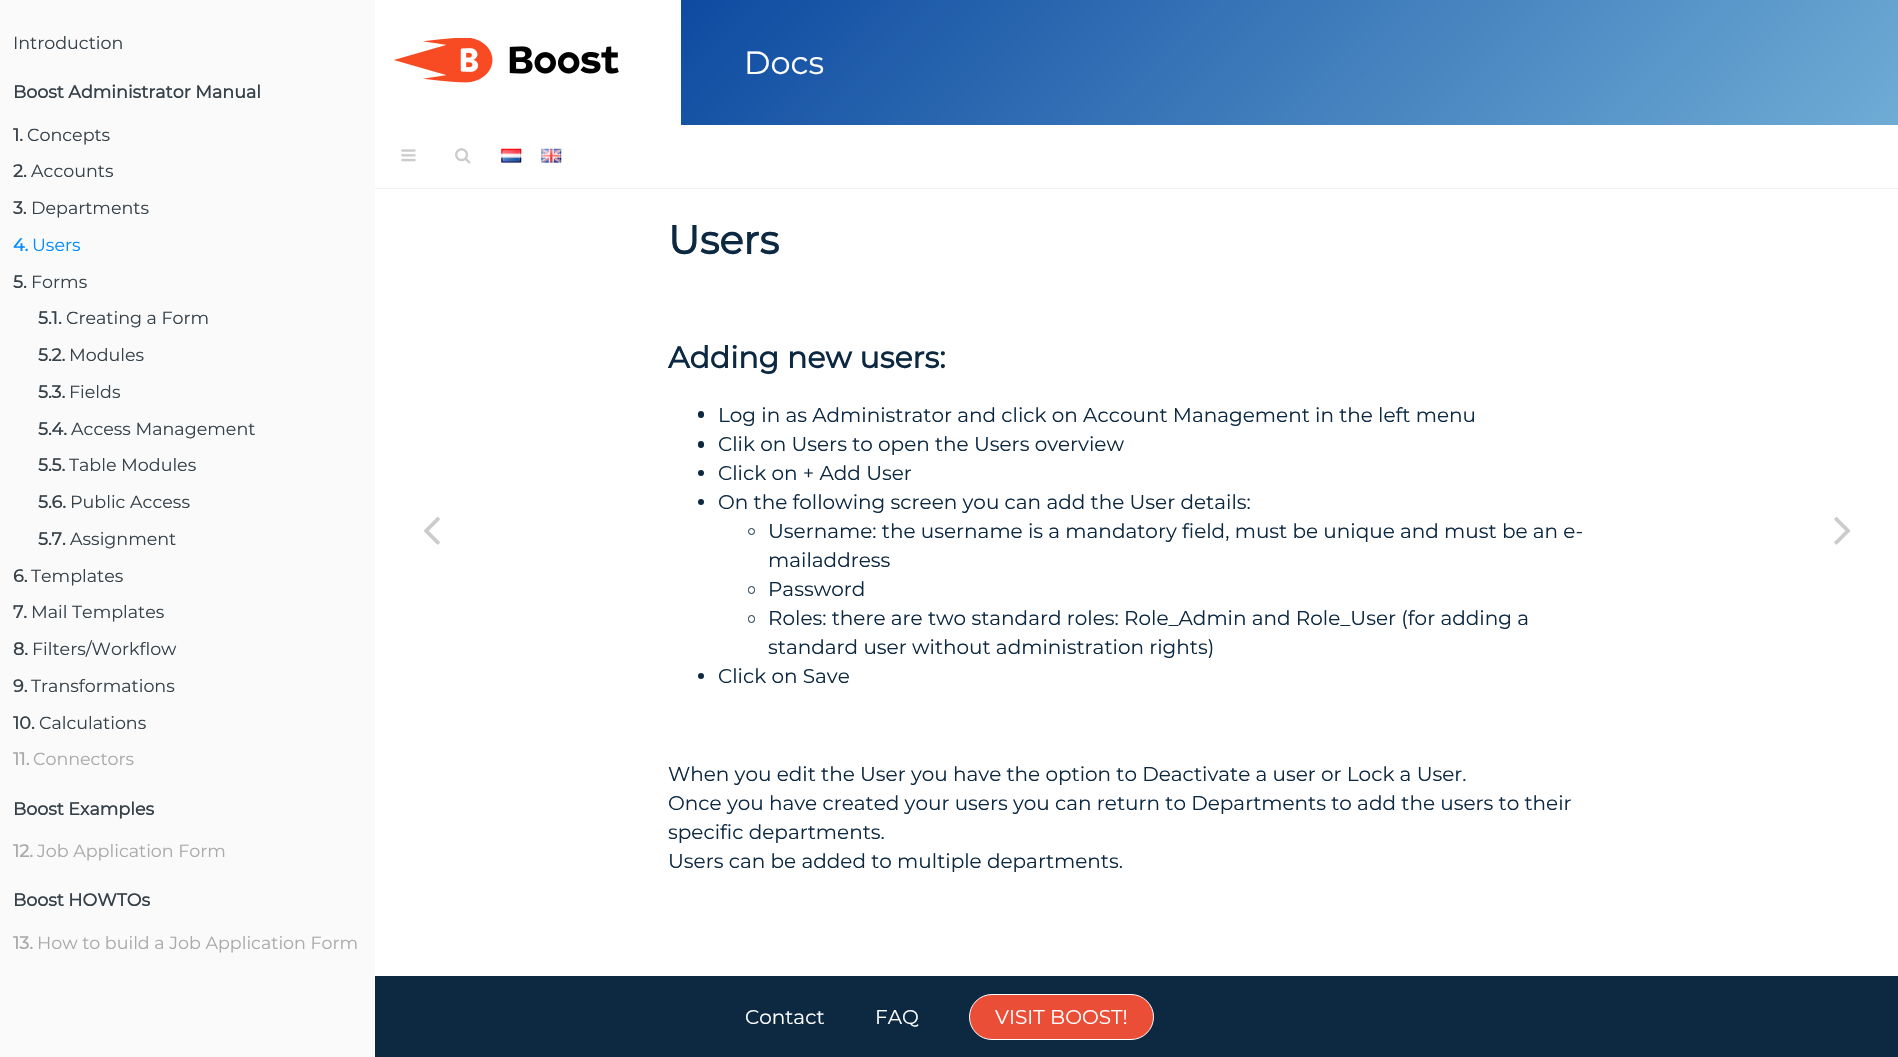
#include "include/core/SkBlurTypes.h"
#include "include/core/SkCanvas.h"
#include "include/core/SkData.h"
#include "include/core/SkFont.h"
#include "include/core/SkFontMgr.h"
#include "include/core/SkImage.h"
#include "include/core/SkMaskFilter.h"
#include "include/core/SkPaint.h"
#include "include/core/SkPathBuilder.h"
#include "include/core/SkTextBlob.h"
#include "include/effects/SkDashPathEffect.h"
#include "include/effects/SkGradientShader.h"
#include "include/utils/SkParsePath.h"

extern sk_sp<SkFontMgr> fontMgr;

static SkFont font(const char* family, int weight, float size, bool italic = false) {
    SkFontStyle style(weight, SkFontStyle::kNormal_Width,
        italic ? SkFontStyle::kItalic_Slant : SkFontStyle::kUpright_Slant);
    SkFont result(fontMgr->matchFamilyStyle(family, style), size);
    result.setSubpixel(true);
    return result;
}

static void drawLabel(SkCanvas* canvas, const char* s, float x, float y, const SkFont& font, SkColor color) {
    SkPaint ink(SkColor4f::FromColor(color));
    ink.setAntiAlias(true);
    canvas->drawString(s, x, y, font, ink);
}

static void fillRect(SkCanvas* canvas, float x, float y, float w, float h, SkColor color) {
    SkPaint ink(SkColor4f::FromColor(color));
    ink.setAntiAlias(true);
    canvas->drawRect(SkRect::MakeXYWH(x, y, w, h), ink);
}

static void fillRRect(SkCanvas* canvas, float x, float y, float w, float h, float radius, SkColor color) {
    SkPaint ink(SkColor4f::FromColor(color));
    ink.setAntiAlias(true);
    canvas->drawRoundRect(SkRect::MakeXYWH(x, y, w, h), radius, radius, ink);
}

static void drawPhoto(SkCanvas* canvas, const char* path, float x, float y, float w, float h) {
    auto image = SkImages::DeferredFromEncodedData(SkData::MakeFromFileName(path));
    canvas->drawImageRect(image, SkRect::MakeXYWH(x, y, w, h), SkSamplingOptions());
}

void draw(SkCanvas* canvas) {
    SkPaint paint;
    paint.setAntiAlias(true);
    canvas->clear(0xFFFFFFFF);
    fillRect(canvas, 0, 0, 375, 1057, 0xFFFAFAFA);
    SkFont font1 = font("Montserrat", 100, 17.5f);
    drawLabel(canvas, "Introduction", 13, 49, font1, 0xFF364149);
    SkFont font2 = font("Montserrat", 700, 17.5f);
    drawLabel(canvas, "Boost Administrator Manual", 13, 98, font2, 0xFF364149);
    drawLabel(canvas, "1.", 13, 141, font2, 0xFF364149);
    drawLabel(canvas, "Concepts", 27, 141, font1, 0xFF364149);
    drawLabel(canvas, "2.", 13, 177, font2, 0xFF364149);
    drawLabel(canvas, "Accounts", 31, 177, font1, 0xFF364149);
    drawLabel(canvas, "3.", 13, 214, font2, 0xFF364149);
    drawLabel(canvas, "Departments", 31, 214, font1, 0xFF364149);
    drawLabel(canvas, "4.", 13, 251, font2, 0xFF008CFF);
    drawLabel(canvas, "Users", 32, 251, font1, 0xFF008CFF);
    drawLabel(canvas, "5.", 13, 288, font2, 0xFF364149);
    drawLabel(canvas, "Forms", 31, 288, font1, 0xFF364149);
    drawLabel(canvas, "5.1.", 38, 324, font2, 0xFF364149);
    drawLabel(canvas, "Creating a Form", 66, 324, font1, 0xFF364149);
    drawLabel(canvas, "5.2.", 38, 361, font2, 0xFF364149);
    drawLabel(canvas, "Modules", 69, 361, font1, 0xFF364149);
    drawLabel(canvas, "5.3.", 38, 398, font2, 0xFF364149);
    drawLabel(canvas, "Fields", 69, 398, font1, 0xFF364149);
    drawLabel(canvas, "5.4.", 38, 435, font2, 0xFF364149);
    drawLabel(canvas, "Access Management", 71, 435, font1, 0xFF364149);
    drawLabel(canvas, "5.5.", 38, 471, font2, 0xFF364149);
    drawLabel(canvas, "Table Modules", 69, 471, font1, 0xFF364149);
    drawLabel(canvas, "5.6.", 38, 508, font2, 0xFF364149);
    drawLabel(canvas, "Public Access", 70, 508, font1, 0xFF364149);
    drawLabel(canvas, "5.7.", 38, 545, font2, 0xFF364149);
    drawLabel(canvas, "Assignment", 70, 545, font1, 0xFF364149);
    drawLabel(canvas, "6.", 13, 582, font2, 0xFF364149);
    drawLabel(canvas, "Templates", 31, 582, font1, 0xFF364149);
    drawLabel(canvas, "7.", 13, 618, font2, 0xFF364149);
    drawLabel(canvas, "Mail Templates", 31, 618, font1, 0xFF364149);
    drawLabel(canvas, "8.", 13, 655, font2, 0xFF364149);
    drawLabel(canvas, "Filters/Workflow", 32, 655, font1, 0xFF364149);
    drawLabel(canvas, "9.", 13, 692, font2, 0xFF364149);
    drawLabel(canvas, "Transformations", 31, 692, font1, 0xFF364149);
    drawLabel(canvas, "10.", 13, 729, font2, 0xFF364149);
    drawLabel(canvas, "Calculations", 39, 729, font1, 0xFF364149);
    drawLabel(canvas, "11.", 13, 765, font2, 0xFFAAAAAA);
    drawLabel(canvas, "Connectors", 33, 765, font1, 0xFFAAAAAA);
    drawLabel(canvas, "Boost Examples", 13, 815, font2, 0xFF364149);
    drawLabel(canvas, "12.", 13, 857, font2, 0xFFAAAAAA);
    drawLabel(canvas, "Job Application Form", 37, 857, font1, 0xFFAAAAAA);
    drawLabel(canvas, "Boost HOWTOs", 13, 906, font2, 0xFF364149);
    drawLabel(canvas, "13.", 13, 949, font2, 0xFFAAAAAA);
    drawLabel(canvas, "How to build a Job Application Form", 37, 949, font1, 0xFFAAAAAA);
    drawPhoto(canvas, "assets/img1.png", 394, 38, 225, 45);
    {
        const SkColor colors[] = {0xFF0E4AA0, 0xFF8BC9E5};
        const float stops[] = {0, 1};
        const SkPoint ends[] = {{1053, -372}, {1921, 497}};
        paint.setShader(SkGradientShader::MakeLinear(ends, colors, stops, 2, SkTileMode::kClamp));
        paint.setAlpha(255);
    }
    canvas->drawRect(SkRect::MakeXYWH(681, 0, 1217, 125), paint);
    SkFont font3 = font("Montserrat", 100, 32);
    drawLabel(canvas, "Docs", 744, 74, font3, 0xFFFFFFFF);
    fillRect(canvas, 375, 188, 1523, 1, 0xFFF2F2F2);
    drawPhoto(canvas, "assets/img2.png", 401, 149, 15, 13);
    drawPhoto(canvas, "assets/img3.png", 455, 148, 16, 16);
    drawPhoto(canvas, "assets/img4.png", 501, 148, 21, 15);
    drawPhoto(canvas, "assets/img5.png", 541, 148, 21, 15);
    SkFont font4 = font("Montserrat", 700, 40);
    drawLabel(canvas, "Users", 668, 254, font4, 0xFF0D2942);
    SkFont font5 = font("Montserrat", 700, 30);
    drawLabel(canvas, "Adding new users:", 668, 368, font5, 0xFF0D2942);
    fillRRect(canvas, 698, 411, 6, 7, 3, 0xFF0D2942);
    SkFont font6 = font("Montserrat", 100, 20);
    drawLabel(canvas, "Log in as Administrator and click on Account Management in the left menu", 718, 422, font6, 0xFF0D2942);
    fillRRect(canvas, 698, 441, 6, 7, 3, 0xFF0D2942);
    drawLabel(canvas, "Clik on Users to open the Users overview", 718, 451, font6, 0xFF0D2942);
    paint.setShader(nullptr);
    paint.setColor(0xFF0D2942);
    canvas->drawCircle(701, 473, 3, paint);
    drawLabel(canvas, "Click on + Add User", 718, 480, font6, 0xFF0D2942);
    canvas->drawCircle(701, 502, 3, paint);
    drawLabel(canvas, "On the following screen you can add the User details:", 718, 509, font6, 0xFF0D2942);
    paint.setStroke(true);
    paint.setStrokeWidth(1);
    canvas->drawCircle(751.5f, 531.5f, 3, paint);
    drawLabel(canvas, "Username: the username is a mandatory field, must be unique and must be an e-", 768, 538, font6, 0xFF0D2942);
    drawLabel(canvas, "mailaddress", 768, 567, font6, 0xFF0D2942);
    canvas->drawRoundRect(SkRect::MakeXYWH(748.5f, 586.5f, 6, 7), 3, 3, paint);
    drawLabel(canvas, "Password", 768, 596, font6, 0xFF0D2942);
    canvas->drawRoundRect(SkRect::MakeXYWH(748.5f, 615.5f, 6, 7), 3, 3, paint);
    drawLabel(canvas, "Roles: there are two standard roles: Role_Admin and Role_User (for adding a", 768, 625, font6, 0xFF0D2942);
    drawLabel(canvas, "standard user without administration rights)", 768, 654, font6, 0xFF0D2942);
    paint.setStroke(false);
    canvas->drawCircle(701, 676, 3, paint);
    drawLabel(canvas, "Click on Save", 718, 683, font6, 0xFF0D2942);
    drawLabel(canvas, "When you edit the User you have the option to Deactivate a user or Lock a User.", 668, 781, font6, 0xFF0D2942);
    drawLabel(canvas, "Once you have created your users you can return to Departments to add the users to their", 668, 810, font6, 0xFF0D2942);
    drawLabel(canvas, "specific departments.", 668, 839, font6, 0xFF0D2942);
    drawLabel(canvas, "Users can be added to multiple departments.", 668, 868, font6, 0xFF0D2942);
    drawPhoto(canvas, "assets/img6.png", 423, 517, 17, 28);
    drawPhoto(canvas, "assets/img7.png", 1834, 517, 17, 28);
    fillRect(canvas, 375, 976, 1523, 81, 0xFF0D2942);
    drawLabel(canvas, "Contact", 745, 1024, font6, 0xFFFFFFFF);
    drawLabel(canvas, "FAQ", 875, 1024, font6, 0xFFFFFFFF);
    paint.setColor(0xFFEA4E36);
    canvas->drawRoundRect(SkRect::MakeXYWH(969.5f, 994.5f, 184, 45), 22.5f, 22.5f, paint);
    paint.setStroke(true);
    paint.setColor(0xFFFFFFFF);
    canvas->drawRoundRect(SkRect::MakeXYWH(969.5f, 994.5f, 184, 45), 22.5f, 22.5f, paint);
    drawLabel(canvas, "VISIT BOOST!", 995, 1024, font6, 0xFFFFFFFF);
}
